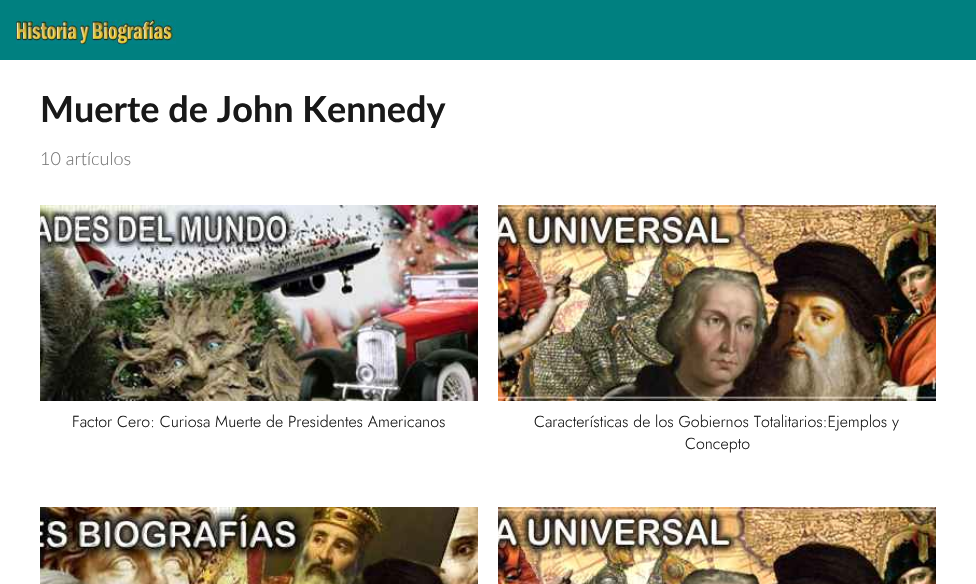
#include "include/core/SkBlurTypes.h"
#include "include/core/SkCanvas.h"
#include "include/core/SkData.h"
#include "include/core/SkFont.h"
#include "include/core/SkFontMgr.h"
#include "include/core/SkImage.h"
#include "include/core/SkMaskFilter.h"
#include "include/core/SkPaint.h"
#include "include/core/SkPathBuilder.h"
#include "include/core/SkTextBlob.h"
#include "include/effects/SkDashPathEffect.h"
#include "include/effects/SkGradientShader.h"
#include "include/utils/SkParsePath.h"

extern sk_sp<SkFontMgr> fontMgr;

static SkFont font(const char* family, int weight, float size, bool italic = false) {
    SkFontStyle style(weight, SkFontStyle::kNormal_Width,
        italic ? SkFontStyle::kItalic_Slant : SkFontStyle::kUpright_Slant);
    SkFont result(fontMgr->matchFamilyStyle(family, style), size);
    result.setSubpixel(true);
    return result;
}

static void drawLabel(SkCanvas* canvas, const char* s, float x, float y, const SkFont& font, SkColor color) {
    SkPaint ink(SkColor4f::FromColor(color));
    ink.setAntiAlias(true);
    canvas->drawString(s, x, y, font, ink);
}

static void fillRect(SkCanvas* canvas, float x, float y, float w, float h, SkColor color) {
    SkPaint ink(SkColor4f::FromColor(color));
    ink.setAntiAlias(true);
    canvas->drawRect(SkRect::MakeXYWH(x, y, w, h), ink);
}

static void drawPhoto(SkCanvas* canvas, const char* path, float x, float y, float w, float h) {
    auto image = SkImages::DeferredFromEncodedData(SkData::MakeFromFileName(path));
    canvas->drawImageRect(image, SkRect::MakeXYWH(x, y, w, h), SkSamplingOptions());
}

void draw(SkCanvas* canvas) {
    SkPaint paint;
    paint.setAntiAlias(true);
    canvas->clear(0xFFFFFFFF);
    fillRect(canvas, 0, 0, 976, 60, 0xFF008080);
    drawPhoto(canvas, "assets/img1.png", 16, 19, 160, 26);
    SkFont font1 = font("Lato", 700, 36);
    drawLabel(canvas, "Muerte de John Kennedy", 40, 122, font1, 0xFF181818);
    SkFont font2 = font("Lato", 300, 18);
    drawLabel(canvas, "10 artículos", 40, 165, font2, 0xFF767676);
    drawPhoto(canvas, "assets/img2.png", 40, 205, 438, 196);
    SkFont font3 = font("Jost", 300, 16);
    drawLabel(canvas, "Factor Cero: Curiosa Muerte de Presidentes Americanos", 72, 427, font3, 0xFF181818);
    drawPhoto(canvas, "assets/img3.png", 498, 205, 438, 196);
    drawLabel(canvas, "Características de los Gobiernos Totalitarios:Ejemplos y", 534, 427, font3, 0xFF181818);
    drawLabel(canvas, "Concepto", 685, 449, font3, 0xFF181818);
    drawPhoto(canvas, "assets/img4.png", 40, 507, 438, 77);
    drawPhoto(canvas, "assets/img5.png", 498, 507, 438, 77);
}
